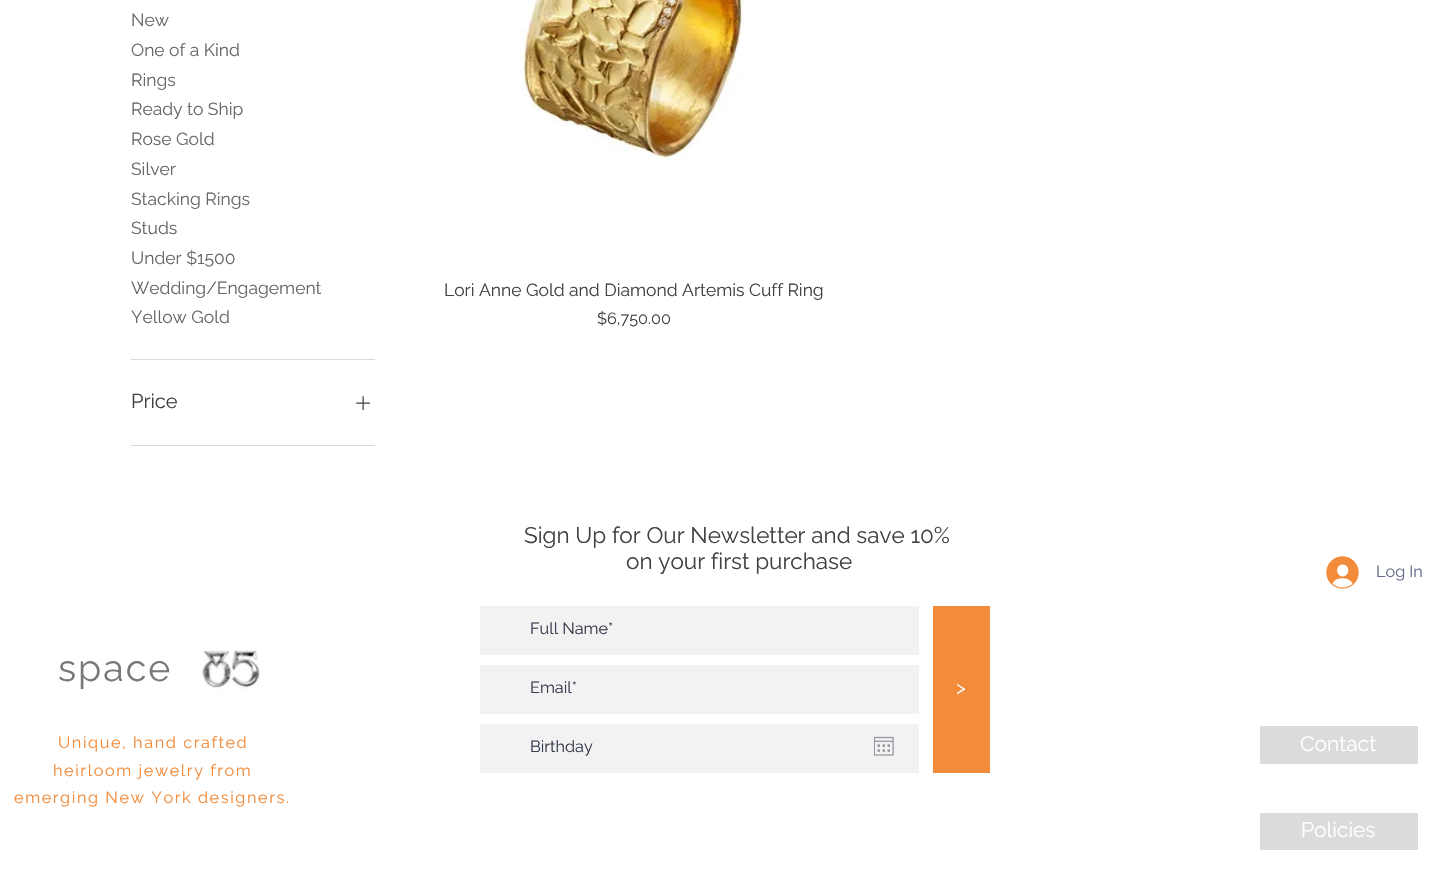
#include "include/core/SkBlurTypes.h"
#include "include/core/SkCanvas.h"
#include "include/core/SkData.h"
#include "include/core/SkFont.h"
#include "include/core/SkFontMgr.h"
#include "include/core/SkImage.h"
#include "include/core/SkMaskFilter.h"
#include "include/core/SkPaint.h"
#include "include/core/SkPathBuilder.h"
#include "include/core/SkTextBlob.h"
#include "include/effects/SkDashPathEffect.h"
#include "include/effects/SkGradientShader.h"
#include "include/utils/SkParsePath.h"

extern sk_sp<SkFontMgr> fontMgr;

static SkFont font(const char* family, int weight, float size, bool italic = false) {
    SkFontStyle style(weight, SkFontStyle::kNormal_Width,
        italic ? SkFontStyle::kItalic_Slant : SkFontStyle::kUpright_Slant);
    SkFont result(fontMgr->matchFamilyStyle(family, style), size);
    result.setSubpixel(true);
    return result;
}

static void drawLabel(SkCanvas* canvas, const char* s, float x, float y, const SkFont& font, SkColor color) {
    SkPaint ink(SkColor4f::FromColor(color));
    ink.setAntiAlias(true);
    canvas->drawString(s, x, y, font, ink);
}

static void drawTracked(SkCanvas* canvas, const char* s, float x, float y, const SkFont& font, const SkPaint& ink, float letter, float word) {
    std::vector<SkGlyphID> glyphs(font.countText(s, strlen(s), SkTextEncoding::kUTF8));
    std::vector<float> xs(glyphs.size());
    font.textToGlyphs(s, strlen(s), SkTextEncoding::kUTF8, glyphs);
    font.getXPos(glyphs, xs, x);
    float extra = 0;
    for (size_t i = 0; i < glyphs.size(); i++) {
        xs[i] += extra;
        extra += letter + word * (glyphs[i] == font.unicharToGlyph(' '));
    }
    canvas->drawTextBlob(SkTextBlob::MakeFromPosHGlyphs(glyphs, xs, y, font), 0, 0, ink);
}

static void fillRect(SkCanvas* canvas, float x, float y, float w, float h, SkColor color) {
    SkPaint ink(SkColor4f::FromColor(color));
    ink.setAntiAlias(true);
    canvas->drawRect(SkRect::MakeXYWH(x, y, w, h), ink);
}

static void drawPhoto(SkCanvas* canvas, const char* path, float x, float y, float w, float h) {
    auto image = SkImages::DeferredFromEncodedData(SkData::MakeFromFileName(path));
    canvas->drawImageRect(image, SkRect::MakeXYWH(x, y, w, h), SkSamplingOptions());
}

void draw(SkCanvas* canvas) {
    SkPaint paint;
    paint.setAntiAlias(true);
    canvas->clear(0xFFFFFFFF);
    fillRect(canvas, 131, 359, 244, 1, 0xFFD9D9D9);
    SkFont font1 = font("Raleway", 400, 17.5f);
    drawLabel(canvas, "New", 131, 26, font1, 0xFF676767);
    drawLabel(canvas, "One of a Kind", 131, 56, font1, 0xFF676767);
    drawLabel(canvas, "Rings", 131, 86, font1, 0xFF676767);
    drawLabel(canvas, "Ready to Ship", 131, 115, font1, 0xFF676767);
    drawLabel(canvas, "Rose Gold", 131, 145, font1, 0xFF676767);
    drawLabel(canvas, "Silver", 131, 175, font1, 0xFF676767);
    drawLabel(canvas, "Stacking Rings", 131, 205, font1, 0xFF676767);
    drawLabel(canvas, "Studs", 131, 234, font1, 0xFF676767);
    drawLabel(canvas, "Under $1500", 131, 264, font1, 0xFF676767);
    drawLabel(canvas, "Wedding/Engagement", 131, 294, font1, 0xFF676767);
    drawLabel(canvas, "Yellow Gold", 131, 323, font1, 0xFF676767);
    fillRect(canvas, 131, 445, 244, 1, 0xFFD9D9D9);
    SkFont font2 = font("Raleway", 400, 20);
    drawLabel(canvas, "Price", 131, 408, font2, 0xFF414141);
    drawPhoto(canvas, "assets/img1.png", 356, 396, 14, 14);
    drawPhoto(canvas, "assets/img2.png", 520, 0, 225, 160);
    drawLabel(canvas, "Lori Anne Gold and Diamond Artemis Cuff Ring", 444, 296, font1, 0xFF414141);
    SkFont font3 = font("Raleway", 400, 16.25f);
    drawLabel(canvas, "$6,750.00", 597, 324, font3, 0xFF414141);
    SkFont font4 = font("Raleway", 400, 22.5f);
    drawLabel(canvas, "Sign Up for Our Newsletter and save 10%", 524, 543, font4, 0xFF414141);
    drawLabel(canvas, "on your first purchase", 626, 569, font4, 0xFF414141);
    drawPhoto(canvas, "assets/img3.png", 1326, 556, 33, 33);
    drawLabel(canvas, "Log In", 1376, 577, font3, 0xFF616B87);
    SkFont font5 = font("Raleway", 400, 37.5f);
    paint.setColor(0xFF787878);
    drawTracked(canvas, "space", 58, 681, font5, paint, 2, 0);
    drawPhoto(canvas, "assets/img4.png", 199, 650, 61, 41);
    paint.setColor(0xFFF28B3A);
    drawTracked(canvas, "Unique, hand crafted", 58, 748, font3, paint, 1.6f, 0);
    drawTracked(canvas, "heirloom jewelry from", 53, 776, font3, paint, 1.6f, 0);
    drawTracked(canvas, "emerging New York designers.", 14, 803, font3, paint, 1.6f, 0);
    fillRect(canvas, 1260, 726, 158, 38, 0xFFDBDBDB);
    SkFont font6 = font("Raleway", 400, 21);
    drawLabel(canvas, "Contact", 1300, 751, font6, 0xFFFFFFFF);
    fillRect(canvas, 1260, 813, 158, 37, 0xFFDBDBDB);
    drawLabel(canvas, "Policies", 1301, 837, font6, 0xFFFFFFFF);
    fillRect(canvas, 480, 606, 439, 49, 0xFFF2F2F2);
    drawLabel(canvas, "Full Name*", 530, 634, font3, 0xFF373B4D);
    fillRect(canvas, 480, 665, 439, 49, 0xFFF2F2F2);
    drawLabel(canvas, "Email*", 530, 693, font3, 0xFF373B4D);
    fillRect(canvas, 933, 606, 57, 167, 0xFFF28B3A);
    SkFont font7 = font("Raleway", 400, 19);
    drawLabel(canvas, ">", 956, 694, font7, 0xFFFFFFFF);
    fillRect(canvas, 480, 724, 439, 49, 0xFFF2F2F2);
    drawLabel(canvas, "Birthday", 530, 752, font3, 0xFF373B4D);
    drawPhoto(canvas, "assets/img5.png", 874, 736, 20, 20);
}
